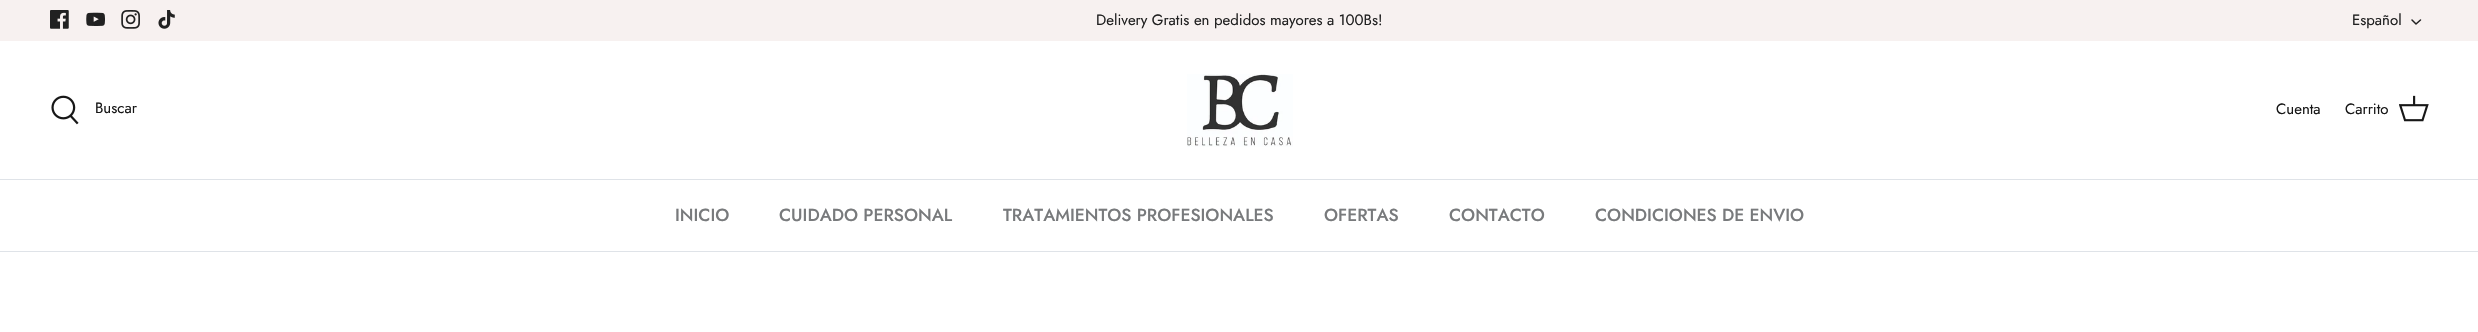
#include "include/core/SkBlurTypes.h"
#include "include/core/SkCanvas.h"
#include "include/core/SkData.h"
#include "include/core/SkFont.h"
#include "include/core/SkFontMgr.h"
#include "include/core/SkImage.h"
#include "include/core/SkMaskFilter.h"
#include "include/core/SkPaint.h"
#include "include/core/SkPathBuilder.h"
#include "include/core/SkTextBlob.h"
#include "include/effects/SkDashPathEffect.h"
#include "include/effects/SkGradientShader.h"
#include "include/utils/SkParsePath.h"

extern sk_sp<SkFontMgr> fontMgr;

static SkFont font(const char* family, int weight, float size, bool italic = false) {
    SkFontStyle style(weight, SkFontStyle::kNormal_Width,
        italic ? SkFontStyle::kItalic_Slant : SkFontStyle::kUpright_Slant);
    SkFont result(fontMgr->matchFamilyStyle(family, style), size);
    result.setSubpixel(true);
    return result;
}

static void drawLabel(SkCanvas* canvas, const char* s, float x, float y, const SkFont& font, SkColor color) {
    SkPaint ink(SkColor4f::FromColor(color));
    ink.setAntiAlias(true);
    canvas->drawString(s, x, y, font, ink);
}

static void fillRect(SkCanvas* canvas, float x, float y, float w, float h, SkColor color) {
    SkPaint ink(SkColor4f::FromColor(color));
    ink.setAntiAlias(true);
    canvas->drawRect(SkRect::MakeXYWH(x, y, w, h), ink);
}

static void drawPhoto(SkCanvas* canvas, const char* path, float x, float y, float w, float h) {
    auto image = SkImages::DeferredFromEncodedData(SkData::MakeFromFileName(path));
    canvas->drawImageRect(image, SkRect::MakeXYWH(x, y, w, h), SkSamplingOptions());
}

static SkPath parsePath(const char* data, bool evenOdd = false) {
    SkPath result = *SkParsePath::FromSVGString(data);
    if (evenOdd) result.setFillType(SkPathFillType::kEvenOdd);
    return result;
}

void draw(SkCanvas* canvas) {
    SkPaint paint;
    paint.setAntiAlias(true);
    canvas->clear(0xFFFFFFFF);
    fillRect(canvas, 0, 0, 2478, 41, 0xFFF7F1F0);
    drawPhoto(canvas, "assets/img1.png", 50, 10, 19, 19);
    drawPhoto(canvas, "assets/img2.png", 86, 12, 19, 14);
    drawPhoto(canvas, "assets/img3.png", 121, 10, 19, 19);
    drawPhoto(canvas, "assets/img4.png", 158, 10, 17, 19);
    SkFont font1 = font("Jost", 400, 15);
    drawLabel(canvas, "Delivery Gratis en pedidos mayores a 100Bs!", 1096, 25, font1, 0xFF212121);
    drawLabel(canvas, "Español", 2352, 25, font1, 0xFF212121);
    paint.setStroke(true);
    paint.setStrokeWidth(1.5f);
    paint.setStrokeCap(SkPaint::kRound_Cap);
    paint.setStrokeJoin(SkPaint::kRound_Join);
    paint.setColor(0xFF212121);
    canvas->drawPath(parsePath("M2412 20L2416 24L2420.5 20"), paint);
    fillRect(canvas, 0, 179, 2478, 1, 0xFFDFE3E8);
    drawPhoto(canvas, "assets/img5.png", 51, 95, 28, 30);
    drawLabel(canvas, "Buscar", 95, 113, font1, 0xFF171717);
    drawPhoto(canvas, "assets/img6.png", 1187, 74, 106, 73);
    drawLabel(canvas, "Cuenta", 2276, 114, font1, 0xFF171717);
    drawLabel(canvas, "Carrito", 2345, 114, font1, 0xFF171717);
    drawPhoto(canvas, "assets/img7.png", 2399, 95, 30, 27);
    fillRect(canvas, 0, 251, 2478, 1, 0xFFDFE3E8);
    SkFont font2 = font("Jost", 500, 17.5f);
    drawLabel(canvas, "INICIO", 675, 221, font2, 0xFF787A7C);
    drawLabel(canvas, "CUIDADO PERSONAL", 779, 221, font2, 0xFF787A7C);
    drawLabel(canvas, "TRATAMIENTOS PROFESIONALES", 1003, 221, font2, 0xFF787A7C);
    drawLabel(canvas, "OFERTAS", 1324, 221, font2, 0xFF787A7C);
    drawLabel(canvas, "CONTACTO", 1449, 221, font2, 0xFF787A7C);
    drawLabel(canvas, "CONDICIONES DE ENVIO", 1595, 221, font2, 0xFF787A7C);
}
